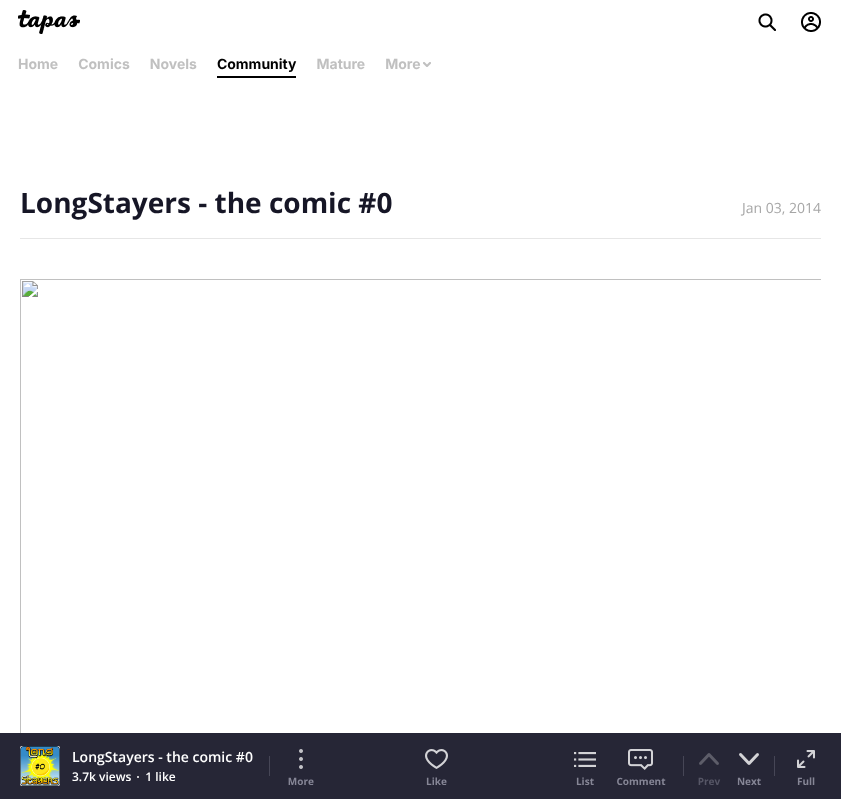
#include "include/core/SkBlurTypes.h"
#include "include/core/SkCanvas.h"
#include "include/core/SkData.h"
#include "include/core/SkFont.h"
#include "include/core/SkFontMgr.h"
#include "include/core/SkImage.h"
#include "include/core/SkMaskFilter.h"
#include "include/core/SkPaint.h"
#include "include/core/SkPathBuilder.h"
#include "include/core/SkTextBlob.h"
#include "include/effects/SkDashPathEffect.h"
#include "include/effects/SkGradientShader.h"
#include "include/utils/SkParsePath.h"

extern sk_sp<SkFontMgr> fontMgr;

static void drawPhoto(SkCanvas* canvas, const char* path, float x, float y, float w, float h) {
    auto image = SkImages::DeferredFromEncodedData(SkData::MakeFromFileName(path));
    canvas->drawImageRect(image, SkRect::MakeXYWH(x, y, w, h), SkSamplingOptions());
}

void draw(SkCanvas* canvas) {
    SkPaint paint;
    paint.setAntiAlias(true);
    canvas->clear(0xFFFFFFFF);
    drawPhoto(canvas, "assets/img1.png", 0, 10, 841, 789);
}
